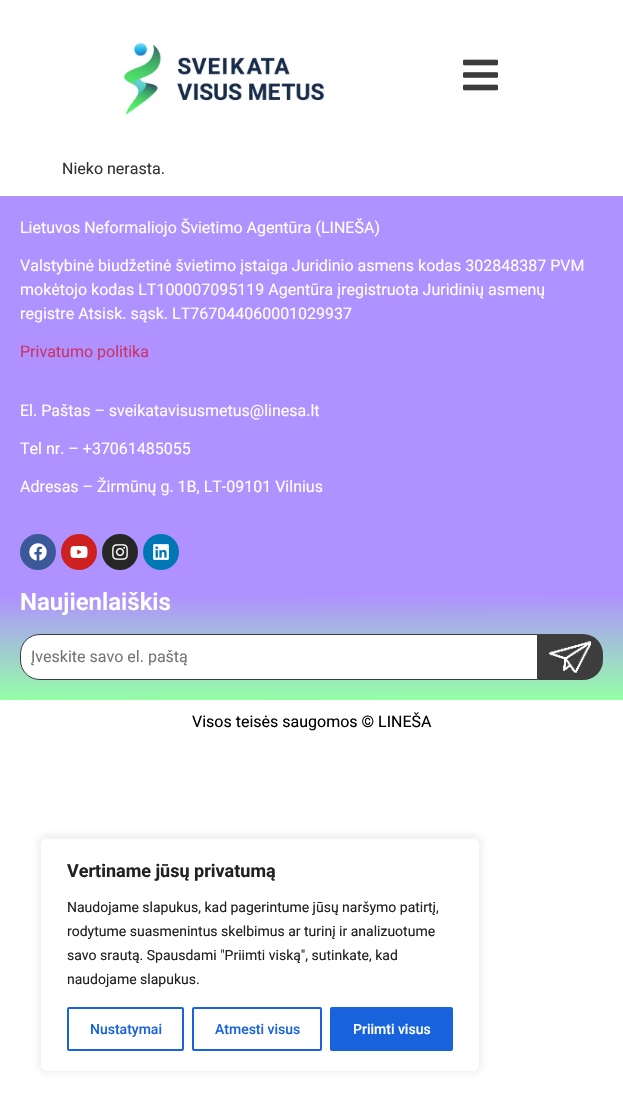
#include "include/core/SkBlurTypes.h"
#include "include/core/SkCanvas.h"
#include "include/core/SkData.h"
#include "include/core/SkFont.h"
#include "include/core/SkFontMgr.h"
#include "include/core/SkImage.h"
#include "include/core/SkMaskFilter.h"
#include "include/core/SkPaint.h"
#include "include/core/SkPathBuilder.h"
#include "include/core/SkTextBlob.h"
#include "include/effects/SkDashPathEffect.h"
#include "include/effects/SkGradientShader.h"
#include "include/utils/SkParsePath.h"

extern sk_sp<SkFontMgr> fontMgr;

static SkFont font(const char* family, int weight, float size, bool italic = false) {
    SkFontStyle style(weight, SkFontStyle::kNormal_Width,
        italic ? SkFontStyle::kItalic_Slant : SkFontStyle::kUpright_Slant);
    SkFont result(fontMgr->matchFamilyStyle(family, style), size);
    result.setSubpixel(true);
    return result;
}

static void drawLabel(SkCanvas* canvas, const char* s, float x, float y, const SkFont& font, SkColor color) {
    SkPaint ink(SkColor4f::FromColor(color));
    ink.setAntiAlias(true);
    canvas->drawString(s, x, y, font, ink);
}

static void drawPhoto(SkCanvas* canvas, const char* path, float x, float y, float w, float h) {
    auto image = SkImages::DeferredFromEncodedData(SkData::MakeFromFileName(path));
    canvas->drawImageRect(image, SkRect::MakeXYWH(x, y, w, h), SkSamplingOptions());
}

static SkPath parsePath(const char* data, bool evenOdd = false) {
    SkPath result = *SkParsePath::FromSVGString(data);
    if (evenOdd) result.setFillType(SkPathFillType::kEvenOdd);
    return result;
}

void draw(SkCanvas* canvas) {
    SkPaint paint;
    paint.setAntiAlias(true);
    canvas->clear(0xFFFFFFFF);
    drawPhoto(canvas, "assets/img1.png", 123, 41, 202, 75);
    drawPhoto(canvas, "assets/img2.png", 463, 59, 35, 32);
    SkFont font1 = font("Roboto", 400, 16);
    drawLabel(canvas, "Nieko nerasta.", 62, 174, font1, 0xFF333333);
    {
        const SkColor colors[] = {0xFFAF91FF, 0xFF94FFA7};
        const float stops[] = {0.79f, 1};
        const SkPoint ends[] = {{311, 196}, {312, 700}};
        paint.setShader(SkGradientShader::MakeLinear(ends, colors, stops, 2, SkTileMode::kClamp));
        paint.setAlpha(255);
    }
    canvas->drawRect(SkRect::MakeXYWH(0, 196, 623, 504), paint);
    drawLabel(canvas, "Lietuvos Neformaliojo Švietimo Agentūra (LINEŠA)", 20, 233, font1, 0xFFFFFFFF);
    drawLabel(canvas, "Valstybinė biudžetinė švietimo įstaiga Juridinio asmens kodas 302848387 PVM", 20, 271, font1, 0xFFFFFFFF);
    drawLabel(canvas, "mokėtojo kodas LT100007095119 Agentūra įregistruota Juridinių asmenų", 20, 295, font1, 0xFFFFFFFF);
    drawLabel(canvas, "registre Atsisk. sąsk. LT767044060001029937", 20, 319, font1, 0xFFFFFFFF);
    drawLabel(canvas, "Privatumo politika", 20, 357, font1, 0xFFCC3366);
    drawLabel(canvas, "El. Paštas – sveikatavisusmetus@linesa.lt", 20, 416, font1, 0xFFFFFFFF);
    drawLabel(canvas, "Tel nr. – +37061485055", 20, 454, font1, 0xFFFFFFFF);
    drawLabel(canvas, "Adresas – Žirmūnų g. 1B, LT-09101 Vilnius", 20, 492, font1, 0xFFFFFFFF);
    paint.setShader(nullptr);
    paint.setColor(0xFF3B5998);
    canvas->drawCircle(38, 552, 18, paint);
    drawPhoto(canvas, "assets/img3.png", 29, 543, 18, 18);
    paint.setColor(0xFFCD201F);
    canvas->drawCircle(79, 552, 18, paint);
    drawPhoto(canvas, "assets/img4.png", 70, 546, 18, 12);
    paint.setColor(0xFF262626);
    canvas->drawCircle(120, 552, 18, paint);
    drawPhoto(canvas, "assets/img5.png", 112, 544, 16, 16);
    paint.setColor(0xFF0077B5);
    canvas->drawCircle(161, 552, 18, paint);
    drawPhoto(canvas, "assets/img6.png", 153, 544, 16, 16);
    SkFont font2 = font("Roboto", 600, 24);
    drawLabel(canvas, "Naujienlaiškis", 20, 610, font2, 0xFFFFFFFF);
    paint.setColor(0xFFFFFFFF);
    canvas->drawPath(parsePath("M40 634.5H537.5V679.5H40C29 679.5 20.5 671 20.5 660V654C20.5 643 29 634.5 40 634.5Z"), paint);
    paint.setStroke(true);
    paint.setStrokeWidth(1);
    paint.setColor(0xFF3B3D3C);
    canvas->drawPath(parsePath("M40 634.5H537.5V679.5H40C29 679.5 20.5 671 20.5 660V654C20.5 643 29 634.5 40 634.5Z"), paint);
    drawLabel(canvas, "Įveskite savo el. paštą", 31, 662, font1, 0xFF757575);
    drawPhoto(canvas, "assets/img7.png", 538, 634, 65, 46);
    drawLabel(canvas, "Visos teisės saugomos © LINEŠA", 192, 727, font1, 0xFF000000);
    paint.setStroke(false);
    paint.setColor(0x4DACABAB);
    paint.setMaskFilter(SkMaskFilter::MakeBlur(kNormal_SkBlurStyle, 5));
    canvas->drawRoundRect(SkRect::MakeXYWH(40, 837, 440, 234), 6, 6, paint);
    paint.setMaskFilter(nullptr);
    paint.setColor(0xFFFFFFFF);
    canvas->drawRoundRect(SkRect::MakeXYWH(40.5f, 838.5f, 439, 233), 5.5f, 5.5f, paint);
    paint.setStroke(true);
    paint.setColor(0xFFF4F4F4);
    canvas->drawRoundRect(SkRect::MakeXYWH(40.5f, 838.5f, 439, 233), 5.5f, 5.5f, paint);
    SkFont font3 = font("Roboto", 700, 18);
    drawLabel(canvas, "Vertiname jūsų privatumą", 67, 877, font3, 0xFF212121);
    SkFont font4 = font("Roboto", 400, 14);
    drawLabel(canvas, "Naudojame slapukus, kad pagerintume jūsų naršymo patirtį,", 67, 912, font4, 0xFF212121);
    drawLabel(canvas, "rodytume suasmenintus skelbimus ar turinį ir analizuotume", 67, 936, font4, 0xFF212121);
    drawLabel(canvas, "savo srautą. Spausdami \"Priimti viską\", sutinkate, kad", 67, 960, font4, 0xFF212121);
    drawLabel(canvas, "naudojame slapukus.", 67, 984, font4, 0xFF212121);
    paint.setStrokeWidth(2);
    paint.setColor(0xFF1863DC);
    canvas->drawRoundRect(SkRect::MakeXYWH(68, 1008, 115, 42), 1, 1, paint);
    SkFont font5 = font("Roboto", 500, 14);
    drawLabel(canvas, "Nustatymai", 90, 1034, font5, 0xFF1863DC);
    canvas->drawRoundRect(SkRect::MakeXYWH(193, 1008, 128, 42), 1, 1, paint);
    drawLabel(canvas, "Atmesti visus", 215, 1034, font5, 0xFF1863DC);
    paint.setStroke(false);
    canvas->drawRoundRect(SkRect::MakeXYWH(331, 1008, 121, 42), 1, 1, paint);
    paint.setStroke(true);
    canvas->drawRoundRect(SkRect::MakeXYWH(331, 1008, 121, 42), 1, 1, paint);
    drawLabel(canvas, "Priimti visus", 353, 1034, font5, 0xFFFFFFFF);
}
